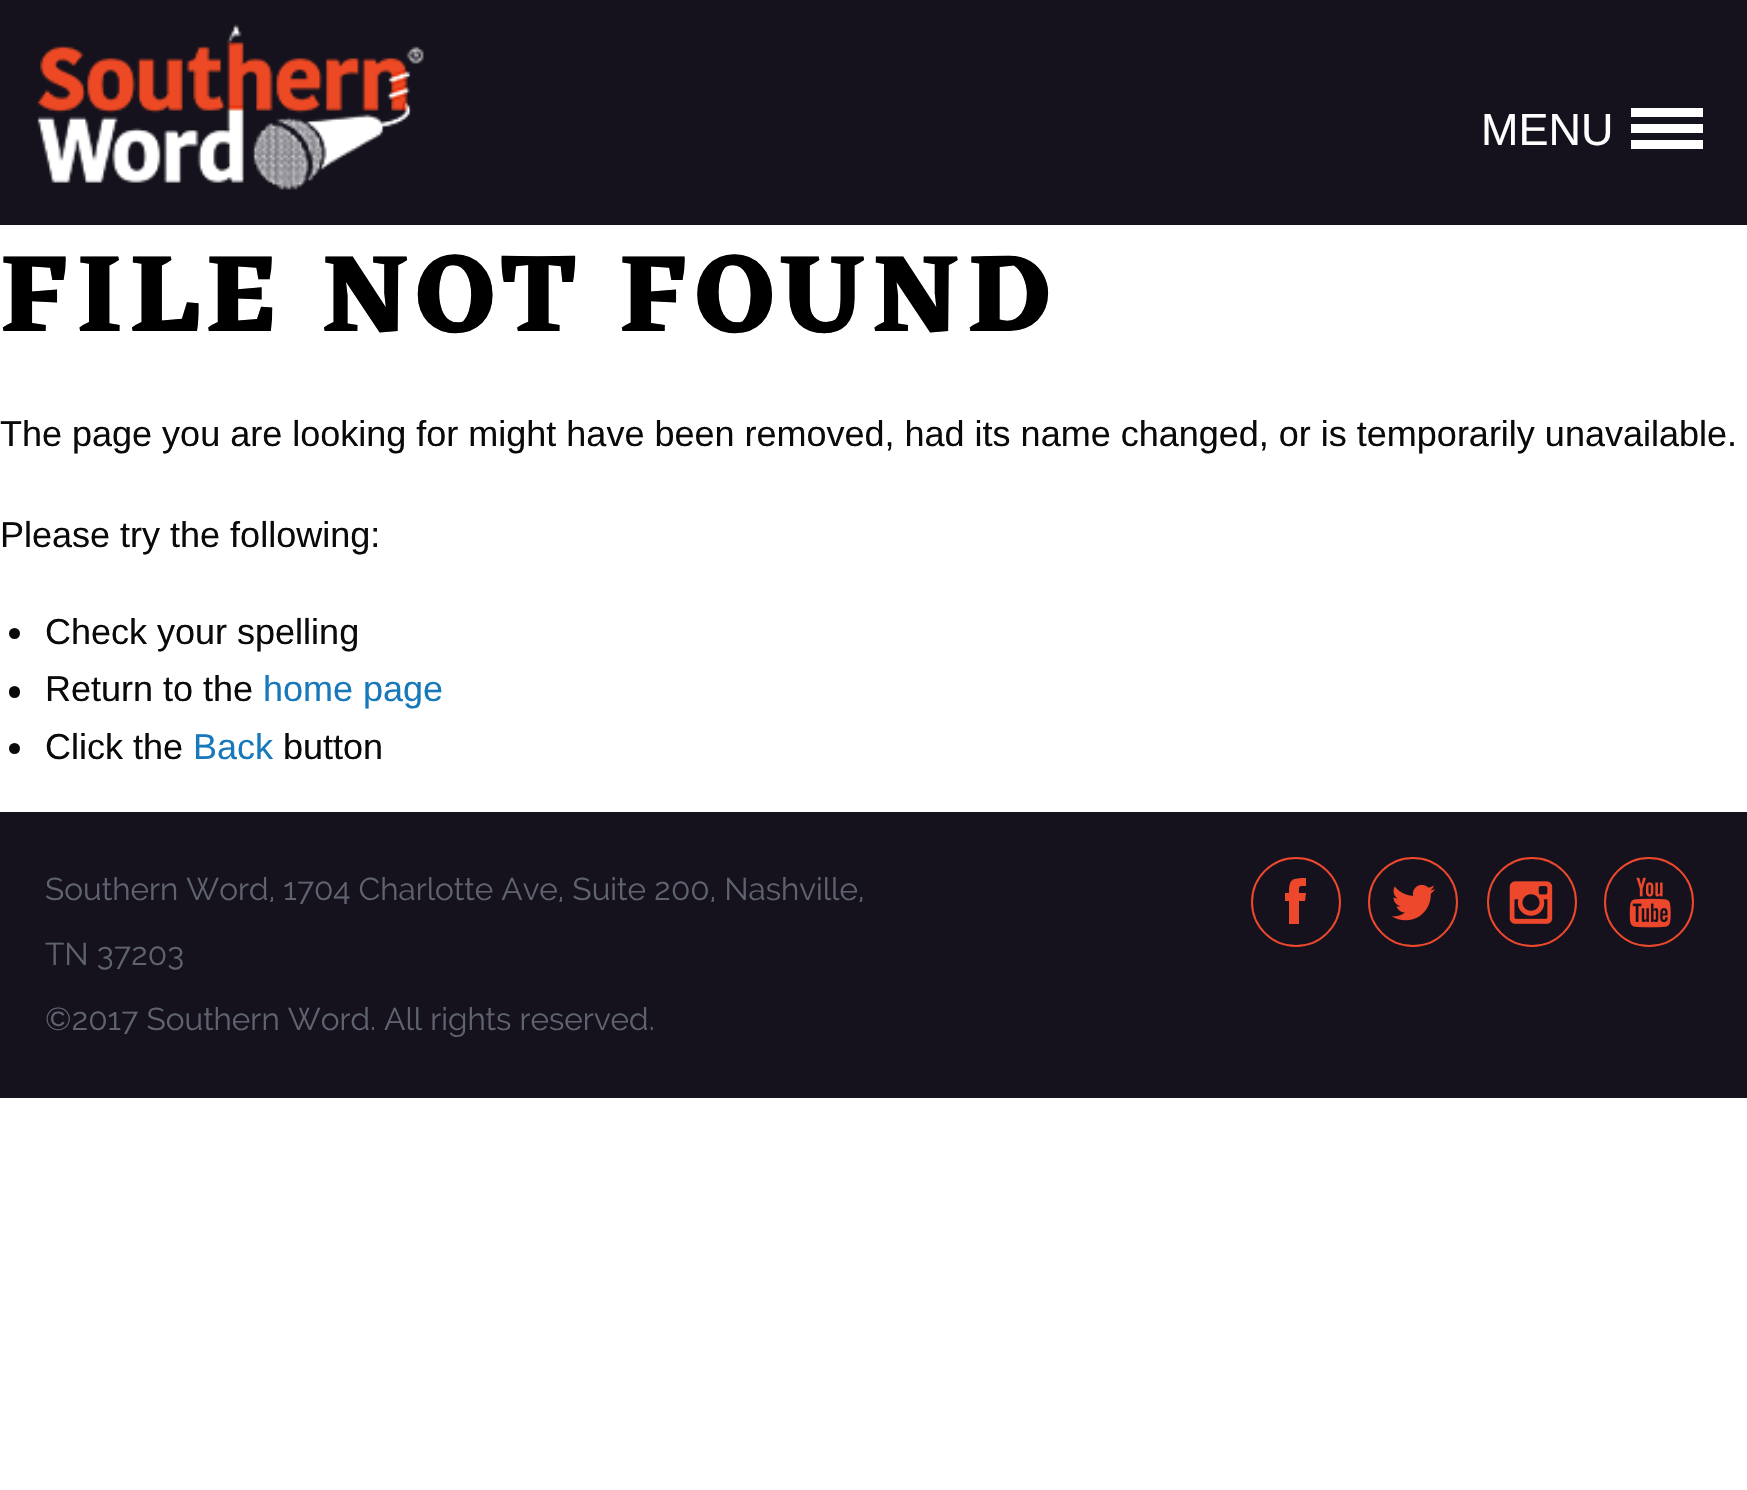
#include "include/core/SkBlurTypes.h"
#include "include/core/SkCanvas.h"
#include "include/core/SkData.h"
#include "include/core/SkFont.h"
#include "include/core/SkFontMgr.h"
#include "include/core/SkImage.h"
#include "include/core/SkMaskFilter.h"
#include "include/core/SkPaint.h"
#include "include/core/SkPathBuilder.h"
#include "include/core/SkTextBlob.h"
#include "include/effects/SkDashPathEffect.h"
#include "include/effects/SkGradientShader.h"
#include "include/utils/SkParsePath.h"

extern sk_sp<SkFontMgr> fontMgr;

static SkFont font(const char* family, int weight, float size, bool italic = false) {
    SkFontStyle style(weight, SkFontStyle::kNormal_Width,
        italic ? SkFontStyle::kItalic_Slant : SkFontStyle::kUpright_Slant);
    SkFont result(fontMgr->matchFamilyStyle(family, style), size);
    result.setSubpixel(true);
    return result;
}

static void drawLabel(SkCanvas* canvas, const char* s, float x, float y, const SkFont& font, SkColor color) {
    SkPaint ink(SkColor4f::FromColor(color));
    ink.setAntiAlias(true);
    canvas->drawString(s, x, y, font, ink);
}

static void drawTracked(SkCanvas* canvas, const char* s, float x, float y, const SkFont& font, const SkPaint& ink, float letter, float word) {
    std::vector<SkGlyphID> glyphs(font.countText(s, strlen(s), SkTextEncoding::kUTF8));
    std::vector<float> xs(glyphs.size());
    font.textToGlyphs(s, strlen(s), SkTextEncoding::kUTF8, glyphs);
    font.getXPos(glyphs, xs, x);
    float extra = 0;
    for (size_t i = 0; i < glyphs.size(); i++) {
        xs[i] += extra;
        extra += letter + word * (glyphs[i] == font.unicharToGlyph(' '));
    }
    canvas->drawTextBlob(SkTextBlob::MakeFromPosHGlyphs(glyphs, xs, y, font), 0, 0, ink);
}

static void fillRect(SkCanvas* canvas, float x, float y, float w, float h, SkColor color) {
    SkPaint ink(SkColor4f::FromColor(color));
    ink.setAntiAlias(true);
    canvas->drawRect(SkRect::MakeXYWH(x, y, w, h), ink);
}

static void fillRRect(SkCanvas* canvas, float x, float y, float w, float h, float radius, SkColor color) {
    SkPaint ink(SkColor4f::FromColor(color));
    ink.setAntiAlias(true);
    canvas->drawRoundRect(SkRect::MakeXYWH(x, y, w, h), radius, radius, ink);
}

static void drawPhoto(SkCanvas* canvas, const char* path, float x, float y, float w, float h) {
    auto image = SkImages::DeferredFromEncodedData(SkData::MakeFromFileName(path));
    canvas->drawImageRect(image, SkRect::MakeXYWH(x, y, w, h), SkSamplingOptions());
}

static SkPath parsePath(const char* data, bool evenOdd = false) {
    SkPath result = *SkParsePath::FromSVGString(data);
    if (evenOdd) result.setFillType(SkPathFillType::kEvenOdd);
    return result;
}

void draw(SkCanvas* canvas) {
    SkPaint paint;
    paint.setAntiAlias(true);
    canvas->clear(0xFFFFFFFF);
    fillRect(canvas, 0, 0, 1747, 225, 0xFF15121D);
    drawPhoto(canvas, "assets/img1.png", 37, 24, 387, 166);
    SkFont font1 = font("Liberation Sans", 400, 45);
    drawLabel(canvas, "MENU", 1481, 145, font1, 0xFFFFFFFF);
    fillRect(canvas, 1631, 108, 72, 9, 0xFFFFFFFF);
    fillRect(canvas, 1631, 124, 72, 9, 0xFFFFFFFF);
    fillRect(canvas, 1631, 140, 72, 9, 0xFFFFFFFF);
    SkFont font2 = font("Eczar", 700, 112.5f);
    paint.setColor(0xFF000000);
    drawTracked(canvas, "FILE NOT FOUND", 0, 331, font2, paint, 6.75f, 0);
    SkFont font3 = font("Liberation Sans", 400, 36);
    drawLabel(canvas, "The page you are looking for might have been removed, had its name changed, or is temporarily unavailable.", 0, 446, font3, 0xFF0A0A0A);
    drawLabel(canvas, "Please try the following:", 0, 547, font3, 0xFF0A0A0A);
    paint.setColor(0xFF0A0A0A);
    canvas->drawCircle(14.5f, 633.5f, 5.5f, paint);
    drawLabel(canvas, "Check your spelling", 45, 644, font3, 0xFF0A0A0A);
    fillRRect(canvas, 9, 686, 11, 12, 5.5f, 0xFF0A0A0A);
    drawLabel(canvas, "Return to the", 45, 701, font3, 0xFF0A0A0A);
    drawLabel(canvas, "home page", 263, 701, font3, 0xFF1779BA);
    canvas->drawCircle(14.5f, 748.5f, 5.5f, paint);
    drawLabel(canvas, "Click the", 45, 759, font3, 0xFF0A0A0A);
    drawLabel(canvas, "Back", 193, 759, font3, 0xFF1779BA);
    drawLabel(canvas, "button", 283, 759, font3, 0xFF0A0A0A);
    fillRect(canvas, 0, 812, 1747, 286, 0xFF15121D);
    SkFont font4 = font("Raleway", 400, 31.5f);
    drawLabel(canvas, "Southern Word, 1704 Charlotte Ave, Suite 200, Nashville,", 45, 900, font4, 0xFF5F6370);
    drawLabel(canvas, "TN 37203", 45, 965, font4, 0xFF5F6370);
    drawLabel(canvas, "©2017 Southern Word. All rights reserved.", 45, 1030, font4, 0xFF5F6370);
    paint.setStroke(true);
    paint.setStrokeWidth(2);
    paint.setColor(0xFFED472C);
    canvas->drawCircle(1296, 902, 44, paint);
    paint.setStroke(false);
    canvas->drawPath(parsePath("M1299 893H1306L1305 901H1299V924H1289V901H1285V893H1289C1289 879 1292 878 1306 878V886C1298 886 1299 886 1299 893Z"), paint);
    paint.setStroke(true);
    canvas->drawCircle(1413, 902, 44, paint);
    drawPhoto(canvas, "assets/img2.png", 1392, 884, 44, 37);
    canvas->drawCircle(1532, 902, 44, paint);
    drawPhoto(canvas, "assets/img3.png", 1509, 881, 44, 43);
    canvas->drawCircle(1649, 902, 44, paint);
    drawPhoto(canvas, "assets/img4.png", 1629, 877, 42, 51);
}
